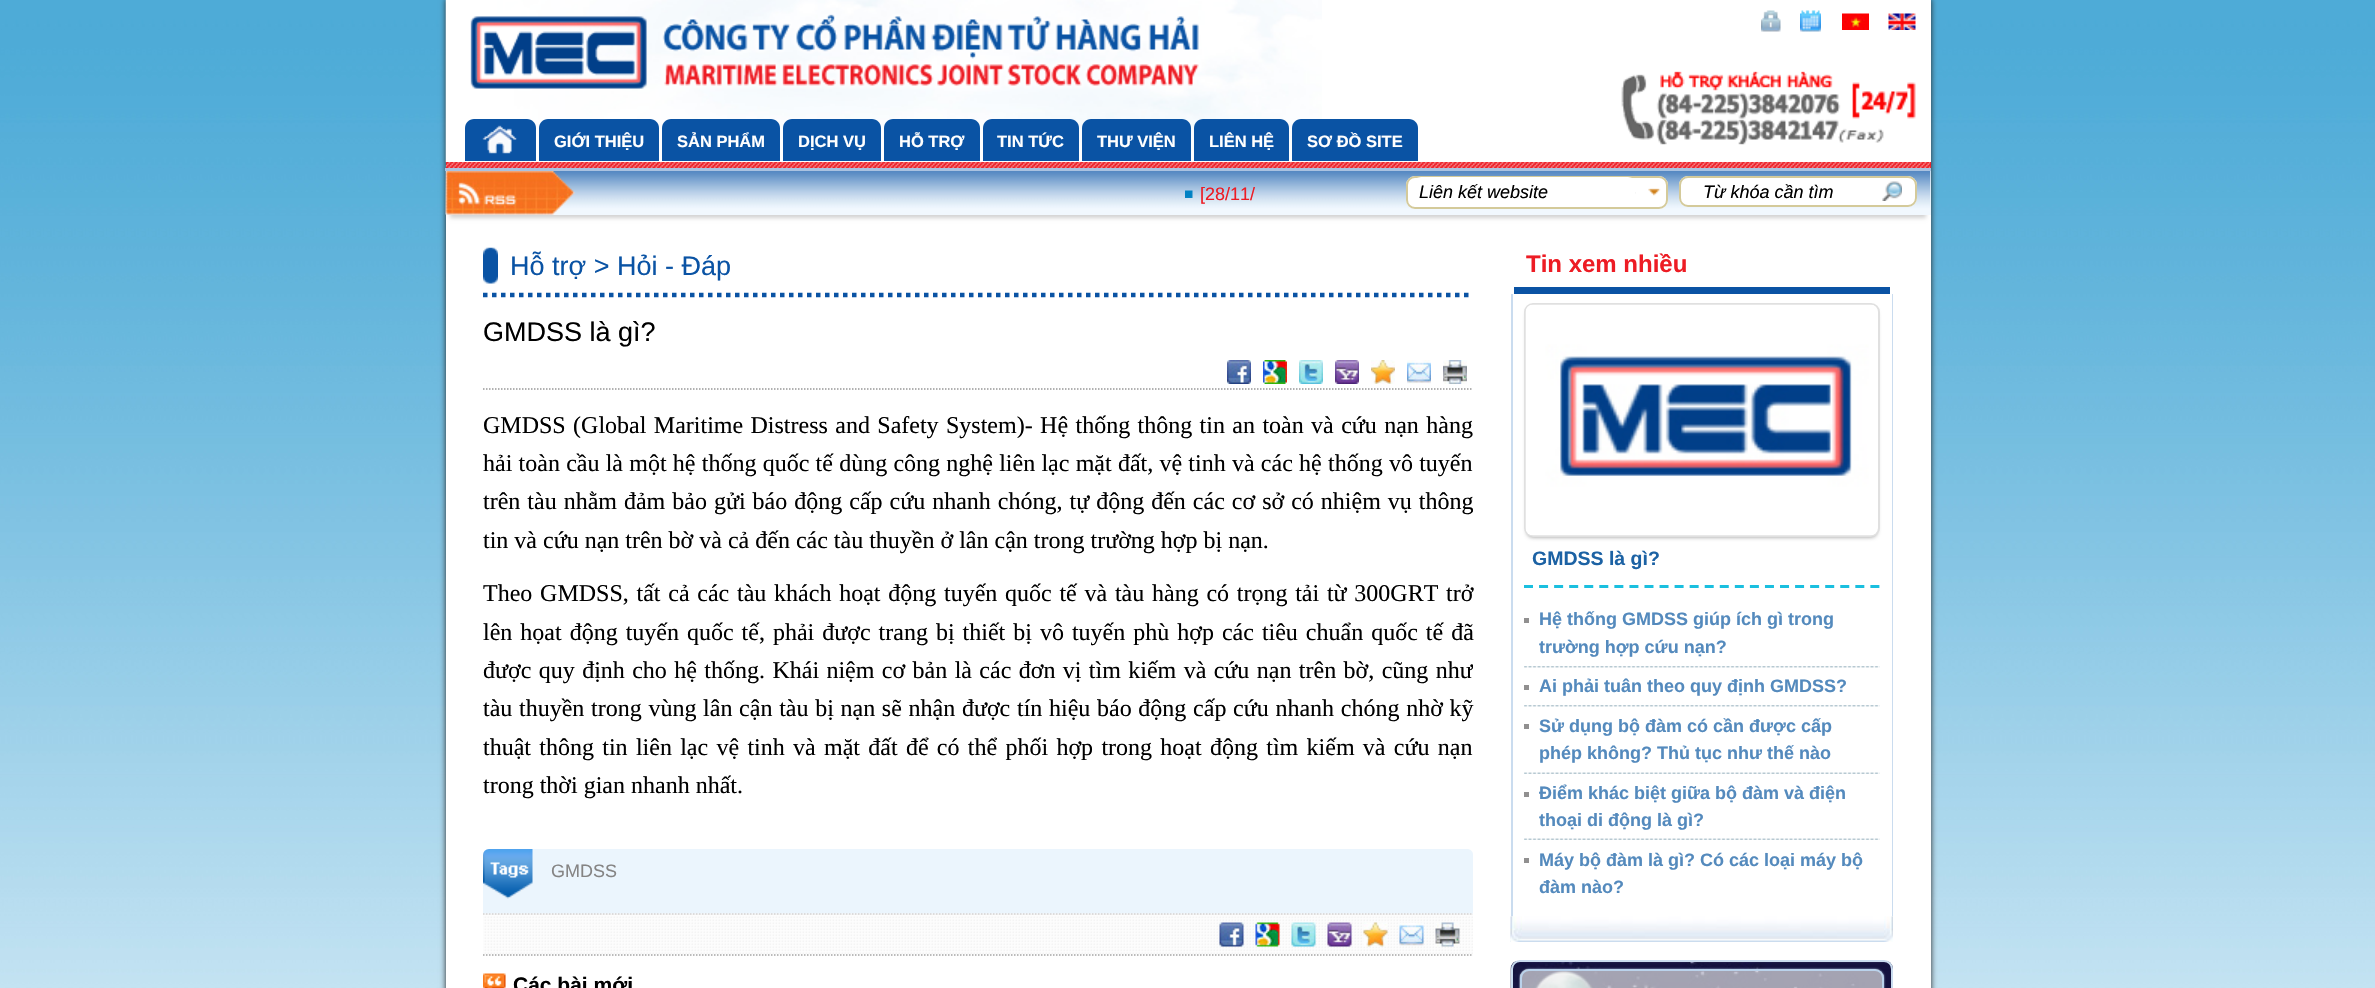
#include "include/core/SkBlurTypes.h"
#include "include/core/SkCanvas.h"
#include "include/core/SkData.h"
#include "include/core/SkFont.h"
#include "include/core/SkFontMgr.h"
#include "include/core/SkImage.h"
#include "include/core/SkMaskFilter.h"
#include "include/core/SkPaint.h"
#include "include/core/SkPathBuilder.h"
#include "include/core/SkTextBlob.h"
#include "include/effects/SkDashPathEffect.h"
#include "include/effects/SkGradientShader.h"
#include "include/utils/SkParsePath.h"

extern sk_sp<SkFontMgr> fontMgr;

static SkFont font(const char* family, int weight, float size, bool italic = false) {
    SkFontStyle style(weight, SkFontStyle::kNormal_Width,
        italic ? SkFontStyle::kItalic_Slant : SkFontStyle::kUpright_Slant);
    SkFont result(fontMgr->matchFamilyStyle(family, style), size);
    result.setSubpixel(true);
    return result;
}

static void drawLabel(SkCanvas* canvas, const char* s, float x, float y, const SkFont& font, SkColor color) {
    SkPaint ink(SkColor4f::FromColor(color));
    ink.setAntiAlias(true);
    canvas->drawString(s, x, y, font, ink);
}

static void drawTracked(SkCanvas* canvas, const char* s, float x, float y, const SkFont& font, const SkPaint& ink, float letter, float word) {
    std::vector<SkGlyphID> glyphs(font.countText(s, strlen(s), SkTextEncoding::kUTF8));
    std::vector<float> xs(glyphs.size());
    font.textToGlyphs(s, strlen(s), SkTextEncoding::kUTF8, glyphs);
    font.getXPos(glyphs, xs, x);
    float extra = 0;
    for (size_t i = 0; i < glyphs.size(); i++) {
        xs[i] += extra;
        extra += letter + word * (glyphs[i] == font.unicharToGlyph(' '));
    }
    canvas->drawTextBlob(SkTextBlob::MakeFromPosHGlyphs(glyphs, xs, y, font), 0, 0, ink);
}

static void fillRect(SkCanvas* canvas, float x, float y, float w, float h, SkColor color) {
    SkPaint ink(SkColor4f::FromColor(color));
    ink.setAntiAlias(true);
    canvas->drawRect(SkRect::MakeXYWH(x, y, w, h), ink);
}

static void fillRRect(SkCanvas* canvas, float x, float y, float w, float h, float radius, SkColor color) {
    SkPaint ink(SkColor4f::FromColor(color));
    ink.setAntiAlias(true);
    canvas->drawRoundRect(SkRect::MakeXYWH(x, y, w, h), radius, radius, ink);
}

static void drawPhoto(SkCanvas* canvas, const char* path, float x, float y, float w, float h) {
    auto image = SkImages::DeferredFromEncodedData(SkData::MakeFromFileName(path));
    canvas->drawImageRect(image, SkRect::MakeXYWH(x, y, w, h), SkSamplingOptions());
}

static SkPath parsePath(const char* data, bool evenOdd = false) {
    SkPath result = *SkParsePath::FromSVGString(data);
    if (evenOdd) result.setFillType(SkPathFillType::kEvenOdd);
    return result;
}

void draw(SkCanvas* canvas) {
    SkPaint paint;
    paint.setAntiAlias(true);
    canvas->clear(0xFFFFFFFF);
    drawPhoto(canvas, "assets/img1.png", 0, 0, 2375, 988);
    paint.setColor(0xFF252525);
    paint.setMaskFilter(SkMaskFilter::MakeBlur(kNormal_SkBlurStyle, 3));
    canvas->drawRect(SkRect::MakeXYWH(446, -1, 1485, 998), paint);
    paint.setMaskFilter(nullptr);
    fillRect(canvas, 446, 0, 1485, 988, 0xFFFFFFFF);
    drawPhoto(canvas, "assets/img3.png", 445, 0, 877, 162);
    drawPhoto(canvas, "assets/img2.png", 470, 14, 729, 75);
    paint.setColor(0xFF0A53A4);
    canvas->drawPath(parsePath("M474 119H527C532 119 536 123 536 128V161H465V128C465 123 469 119 474 119Z"), paint);
    drawPhoto(canvas, "assets/img4.png", 482, 125, 35, 29);
    canvas->drawPath(parsePath("M548 119H650C655 119 659 123 659 128V161H539V128C539 123 543 119 548 119Z"), paint);
    SkFont font1 = font("Liberation Sans", 700, 16.5f);
    drawLabel(canvas, "GIỚI THIỆU", 554, 147, font1, 0xFFFFFFFF);
    canvas->drawPath(parsePath("M671 119H771C776 119 780 123 780 128V161H662V128C662 123 666 119 671 119Z"), paint);
    drawLabel(canvas, "SẢN PHẨM", 677, 147, font1, 0xFFFFFFFF);
    canvas->drawPath(parsePath("M792 119H872C877 119 881 123 881 128V161H783V128C783 123 787 119 792 119Z"), paint);
    drawLabel(canvas, "DỊCH VỤ", 798, 147, font1, 0xFFFFFFFF);
    canvas->drawPath(parsePath("M893 119H971C976 119 980 123 980 128V161H884V128C884 123 888 119 893 119Z"), paint);
    drawLabel(canvas, "HỖ TRỢ", 899, 147, font1, 0xFFFFFFFF);
    canvas->drawPath(parsePath("M992 119H1070C1075 119 1079 123 1079 128V161H983V128C983 123 987 119 992 119Z"), paint);
    drawLabel(canvas, "TIN TỨC", 997, 147, font1, 0xFFFFFFFF);
    canvas->drawPath(parsePath("M1091 119H1182C1187 119 1191 123 1191 128V161H1082V128C1082 123 1086 119 1091 119Z"), paint);
    drawLabel(canvas, "THƯ VIỆN", 1097, 147, font1, 0xFFFFFFFF);
    canvas->drawPath(parsePath("M1203 119H1280C1285 119 1289 123 1289 128V161H1194V128C1194 123 1198 119 1203 119Z"), paint);
    drawLabel(canvas, "LIÊN HỆ", 1209, 147, font1, 0xFFFFFFFF);
    canvas->drawPath(parsePath("M1301 119H1409C1414 119 1418 123 1418 128V161H1292V128C1292 123 1296 119 1301 119Z"), paint);
    drawLabel(canvas, "SƠ ĐỒ SITE", 1307, 147, font1, 0xFFFFFFFF);
    drawPhoto(canvas, "assets/img5.png", 1761, 10, 20, 22);
    drawPhoto(canvas, "assets/img6.png", 1800, 10, 21, 22);
    drawPhoto(canvas, "assets/img7.png", 1842, 13, 27, 17);
    drawPhoto(canvas, "assets/img8.png", 1888, 13, 28, 17);
    drawPhoto(canvas, "assets/img9.png", 1621, 71, 295, 74);
    fillRect(canvas, 446, 162, 1485, 6, 0xFFED1C24);
    drawPhoto(canvas, "assets/img10.png", 445, 162, 1486, 6);
    fillRect(canvas, 445, 168, 1486, 3, 0xFFAAC2E0);
    paint.setColor(0xFFD2D2D2);
    paint.setMaskFilter(SkMaskFilter::MakeBlur(kNormal_SkBlurStyle, 2));
    canvas->drawRect(SkRect::MakeXYWH(450, 183, 1476, 35), paint);
    paint.setMaskFilter(nullptr);
    fillRect(canvas, 446, 171, 1485, 44, 0xFFF1F8FE);
    drawPhoto(canvas, "assets/img11.png", 445, 171, 1486, 44);
    drawPhoto(canvas, "assets/img12.png", 445, 171, 130, 44);
    drawPhoto(canvas, "assets/img13.png", 1185, 190, 8, 8);
    SkFont font2 = font("Liberation Sans", 400, 18);
    drawLabel(canvas, "[28/11/", 1200, 200, font2, 0xFFED1C24);
    fillRRect(canvas, 1406, 176, 262, 33, 9, 0xFFFFFFFF);
    drawPhoto(canvas, "assets/img14.png", 1648, 188, 13, 8);
    paint.setStroke(true);
    paint.setStrokeWidth(2);
    paint.setColor(0xFFD4CA9A);
    canvas->drawRoundRect(SkRect::MakeXYWH(1407, 177, 260, 31), 8, 8, paint);
    fillRRect(canvas, 1412, 177, 225, 30, 9, 0xFFFFFFFF);
    drawPhoto(canvas, "assets/img15.png", 1635, 192, 1, 2);
    SkFont font3 = font("Liberation Sans", 400, 18, true);
    drawLabel(canvas, "Liên kết website", 1419, 198, font3, 0xFF000000);
    fillRRect(canvas, 1679, 176, 238, 31, 9, 0xFFFFFFFF);
    drawPhoto(canvas, "assets/img16.png", 1882, 181, 20, 20);
    canvas->drawRoundRect(SkRect::MakeXYWH(1680, 177, 236, 29), 8, 8, paint);
    drawLabel(canvas, "Từ khóa cần tìm", 1703, 198, font3, 0xFF000000);
    drawPhoto(canvas, "assets/img17.png", 483, 247, 15, 37);
    paint.setStrokeWidth(4.5f);
    paint.setColor(0xFF0A53A4);
    paint.setPathEffect(SkDashPathEffect::Make({{4.5f, 4.5f}}, 0));
    canvas->drawPath(parsePath("M483 295H1473"), paint);
    paint.setPathEffect(nullptr);
    SkFont font4 = font("Liberation Sans", 400, 27);
    drawLabel(canvas, "Hỗ trợ > Hỏi - Đáp", 510, 275, font4, 0xFF0A53A4);
    drawLabel(canvas, "GMDSS là gì?", 483, 341, font4, 0xFF000000);
    paint.setStrokeWidth(1.5f);
    paint.setColor(0xFF989898);
    paint.setPathEffect(SkDashPathEffect::Make({{1.5f, 1.5f}}, 0));
    canvas->drawPath(parsePath("M483 389H1473"), paint);
    paint.setPathEffect(nullptr);
    drawPhoto(canvas, "assets/img18.png", 1227, 360, 24, 24);
    drawPhoto(canvas, "assets/img19.png", 1263, 360, 24, 24);
    drawPhoto(canvas, "assets/img20.png", 1299, 360, 24, 24);
    drawPhoto(canvas, "assets/img21.png", 1335, 360, 24, 24);
    drawPhoto(canvas, "assets/img22.png", 1371, 360, 24, 24);
    drawPhoto(canvas, "assets/img23.png", 1407, 360, 24, 24);
    drawPhoto(canvas, "assets/img24.png", 1443, 360, 24, 24);
    SkFont font5 = font("Liberation Serif", 400, 24);
    paint.setStroke(false);
    paint.setColor(0xFF000000);
    drawTracked(canvas, "GMDSS (Global Maritime Distress and Safety System)- Hệ thống thông tin an toàn và cứu nạn hàng", 483, 433, font5, paint, 0, 1.4f);
    drawTracked(canvas, "hải toàn cầu là một hệ thống quốc tế dùng công nghệ liên lạc mặt đất, vệ tinh và các hệ thống vô tuyến", 483, 471, font5, paint, 0, 0.25f);
    drawTracked(canvas, "trên tàu nhằm đảm bảo gửi báo động cấp cứu nhanh chóng, tự động đến các cơ sở có nhiệm vụ thông", 483, 509, font5, paint, 0, 1);
    drawLabel(canvas, "tin và cứu nạn trên bờ và cả đến các tàu thuyền ở lân cận trong trường hợp bị nạn.", 483, 548, font5, 0xFF000000);
    drawTracked(canvas, "Theo GMDSS, tất cả các tàu khách hoạt động tuyến quốc tế và tàu hàng có trọng tải từ 300GRT trở", 483, 601, font5, paint, 0, 1.75f);
    drawTracked(canvas, "lên họat động tuyến quốc tế, phải được trang bị thiết bị vô tuyến phù hợp các tiêu chuẩn quốc tế đã", 483, 640, font5, paint, 0, 2);
    canvas->save();
    canvas->clipRect(SkRect::MakeXYWH(446, 248, 1027, 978));
    drawTracked(canvas, "được quy định cho hệ thống. Khái niệm cơ bản là các đơn vị tìm kiếm và cứu nạn trên bờ, cũng như", 483, 678, font5, paint, 0, 1.4f);
    canvas->restore();
    drawTracked(canvas, "tàu thuyền trong vùng lân cận tàu bị nạn sẽ nhận được tín hiệu báo động cấp cứu nhanh chóng nhờ kỹ", 483, 716, font5, paint, 0, 0.7f);
    drawTracked(canvas, "thuật thông tin liên lạc vệ tinh và mặt đất để có thể phối hợp trong hoạt động tìm kiếm và cứu nạn", 483, 755, font5, paint, 0, 2.3f);
    drawLabel(canvas, "trong thời gian nhanh nhất.", 483, 793, font5, 0xFF000000);
    paint.setColor(0xFFEBF5FD);
    canvas->drawPath(parsePath("M489 849H1467C1470.5 849 1473 851.5 1473 855V914H483V855C483 851.5 485.5 849 489 849Z"), paint);
    drawPhoto(canvas, "assets/img25.png", 483, 849, 50, 50);
    drawLabel(canvas, "GMDSS", 551, 877, font2, 0xFF858484);
    drawPhoto(canvas, "assets/img26.png", 483, 913, 990, 43);
    paint.setStroke(true);
    paint.setColor(0xFFD3D2D2);
    paint.setPathEffect(SkDashPathEffect::Make({{1.5f, 1.5f}}, 0));
    canvas->drawPath(parsePath("M483 914H1473"), paint);
    paint.setPathEffect(nullptr);
    paint.setColor(0xFFA5A5A5);
    paint.setPathEffect(SkDashPathEffect::Make({{1.5f, 1.5f}}, 0));
    canvas->drawPath(parsePath("M483 955H1473"), paint);
    paint.setPathEffect(nullptr);
    drawPhoto(canvas, "assets/img27.png", 1219, 922, 25, 25);
    drawPhoto(canvas, "assets/img28.png", 1255, 922, 25, 25);
    drawPhoto(canvas, "assets/img29.png", 1291, 922, 25, 25);
    drawPhoto(canvas, "assets/img30.png", 1327, 922, 25, 25);
    drawPhoto(canvas, "assets/img31.png", 1363, 922, 25, 25);
    drawPhoto(canvas, "assets/img32.png", 1399, 923, 25, 23);
    drawPhoto(canvas, "assets/img33.png", 1435, 922, 25, 25);
    drawPhoto(canvas, "assets/img34.png", 483, 973, 23, 15);
    SkFont font6 = font("Liberation Sans", 700, 21);
    drawLabel(canvas, "Các bài mới", 513, 992, font6, 0xFF000000);
    SkFont font7 = font("Liberation Sans", 700, 24);
    drawLabel(canvas, "Tin xem nhiều", 1526, 272, font7, 0xFFED1C24);
    fillRect(canvas, 1514, 287, 376, 7, 0xFF0A53A4);
    fillRect(canvas, 1892, 294, 1, 623, 0xFFCADCEF);
    fillRect(canvas, 1511, 294, 2, 623, 0xFFCADCEF);
    paint.setStrokeWidth(3);
    paint.setColor(0xFF1ABFDF);
    paint.setPathEffect(SkDashPathEffect::Make({{9, 6.06f}}, 0));
    canvas->drawPath(parsePath("M1524 586.5H1879.5"), paint);
    paint.setPathEffect(nullptr);
    paint.setStroke(false);
    paint.setColor(0xFF959595);
    paint.setMaskFilter(SkMaskFilter::MakeBlur(kNormal_SkBlurStyle, 2));
    canvas->drawRoundRect(SkRect::MakeXYWH(1527, 309, 350, 228), 6, 6, paint);
    paint.setMaskFilter(nullptr);
    paint.setStroke(true);
    paint.setStrokeWidth(2);
    paint.setColor(0xFFE0E0E0);
    canvas->drawRoundRect(SkRect::MakeXYWH(1525, 304, 354, 232), 8, 8, paint);
    drawPhoto(canvas, "assets/img35.png", 1525, 304, 353, 232);
    SkFont font8 = font("Liberation Sans", 700, 19.5f);
    drawLabel(canvas, "GMDSS là gì?", 1532, 565, font8, 0xFF1C62A4);
    drawPhoto(canvas, "assets/img36.png", 1524, 666, 356, 2);
    fillRect(canvas, 1524, 618, 5, 5, 0xFF919090);
    SkFont font9 = font("Liberation Sans", 700, 18);
    drawLabel(canvas, "Hệ thống GMDSS giúp ích gì trong", 1539, 625, font9, 0xFF548ABD);
    drawLabel(canvas, "trường hợp cứu nạn?", 1539, 653, font9, 0xFF548ABD);
    drawPhoto(canvas, "assets/img36.png", 1524, 705, 356, 2);
    fillRect(canvas, 1524, 685, 5, 5, 0xFF919090);
    drawLabel(canvas, "Ai phải tuân theo quy định GMDSS?", 1539, 692, font9, 0xFF548ABD);
    drawPhoto(canvas, "assets/img37.png", 1524, 772, 356, 2);
    fillRect(canvas, 1524, 724, 5, 5, 0xFF919090);
    drawLabel(canvas, "Sử dụng bộ đàm có cần được cấp", 1539, 732, font9, 0xFF548ABD);
    drawLabel(canvas, "phép không? Thủ tục như thế nào", 1539, 759, font9, 0xFF548ABD);
    drawPhoto(canvas, "assets/img37.png", 1524, 838, 356, 2);
    fillRect(canvas, 1524, 792, 5, 5, 0xFF919090);
    drawLabel(canvas, "Điểm khác biệt giữa bộ đàm và điện", 1539, 799, font9, 0xFF548ABD);
    drawLabel(canvas, "thoại di động là gì?", 1539, 826, font9, 0xFF548ABD);
    fillRect(canvas, 1524, 858, 5, 5, 0xFF919090);
    drawLabel(canvas, "Máy bộ đàm là gì? Có các loại máy bộ", 1539, 866, font9, 0xFF548ABD);
    drawLabel(canvas, "đàm nào?", 1539, 893, font9, 0xFF548ABD);
    drawPhoto(canvas, "assets/img38.png", 1510, 916, 383, 26);
    drawPhoto(canvas, "assets/img39.png", 1510, 916, 12, 26);
    drawPhoto(canvas, "assets/img40.png", 1884, 916, 9, 26);
    drawPhoto(canvas, "assets/img41.png", 1510, 961, 383, 27);
    paint.setColor(0xFFCADCEF);
    canvas->drawRoundRect(SkRect::MakeXYWH(1512, 961, 380, 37), 8, 8, paint);
    canvas->save();
    canvas->clipPath(parsePath("M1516 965H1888V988H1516ZM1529 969H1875C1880 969 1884 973 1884 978V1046C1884 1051 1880 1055 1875 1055H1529C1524 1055 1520 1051 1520 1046V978C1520 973 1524 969 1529 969Z", true), true);
    paint.setStroke(false);
    paint.setColor(0xFFB4CEE9);
    paint.setMaskFilter(SkMaskFilter::MakeBlur(kNormal_SkBlurStyle, 1));
    canvas->drawRoundRect(SkRect::MakeXYWH(1520, 969, 364, 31), 9, 9, paint);
    paint.setMaskFilter(nullptr);
    canvas->restore();
    drawPhoto(canvas, "assets/img42.png", 1519, 969, 365, 19);
    paint.setStroke(true);
    paint.setColor(0xFFBAD2EB);
    canvas->drawRoundRect(SkRect::MakeXYWH(1521, 970, 362, 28), 8, 8, paint);
}
